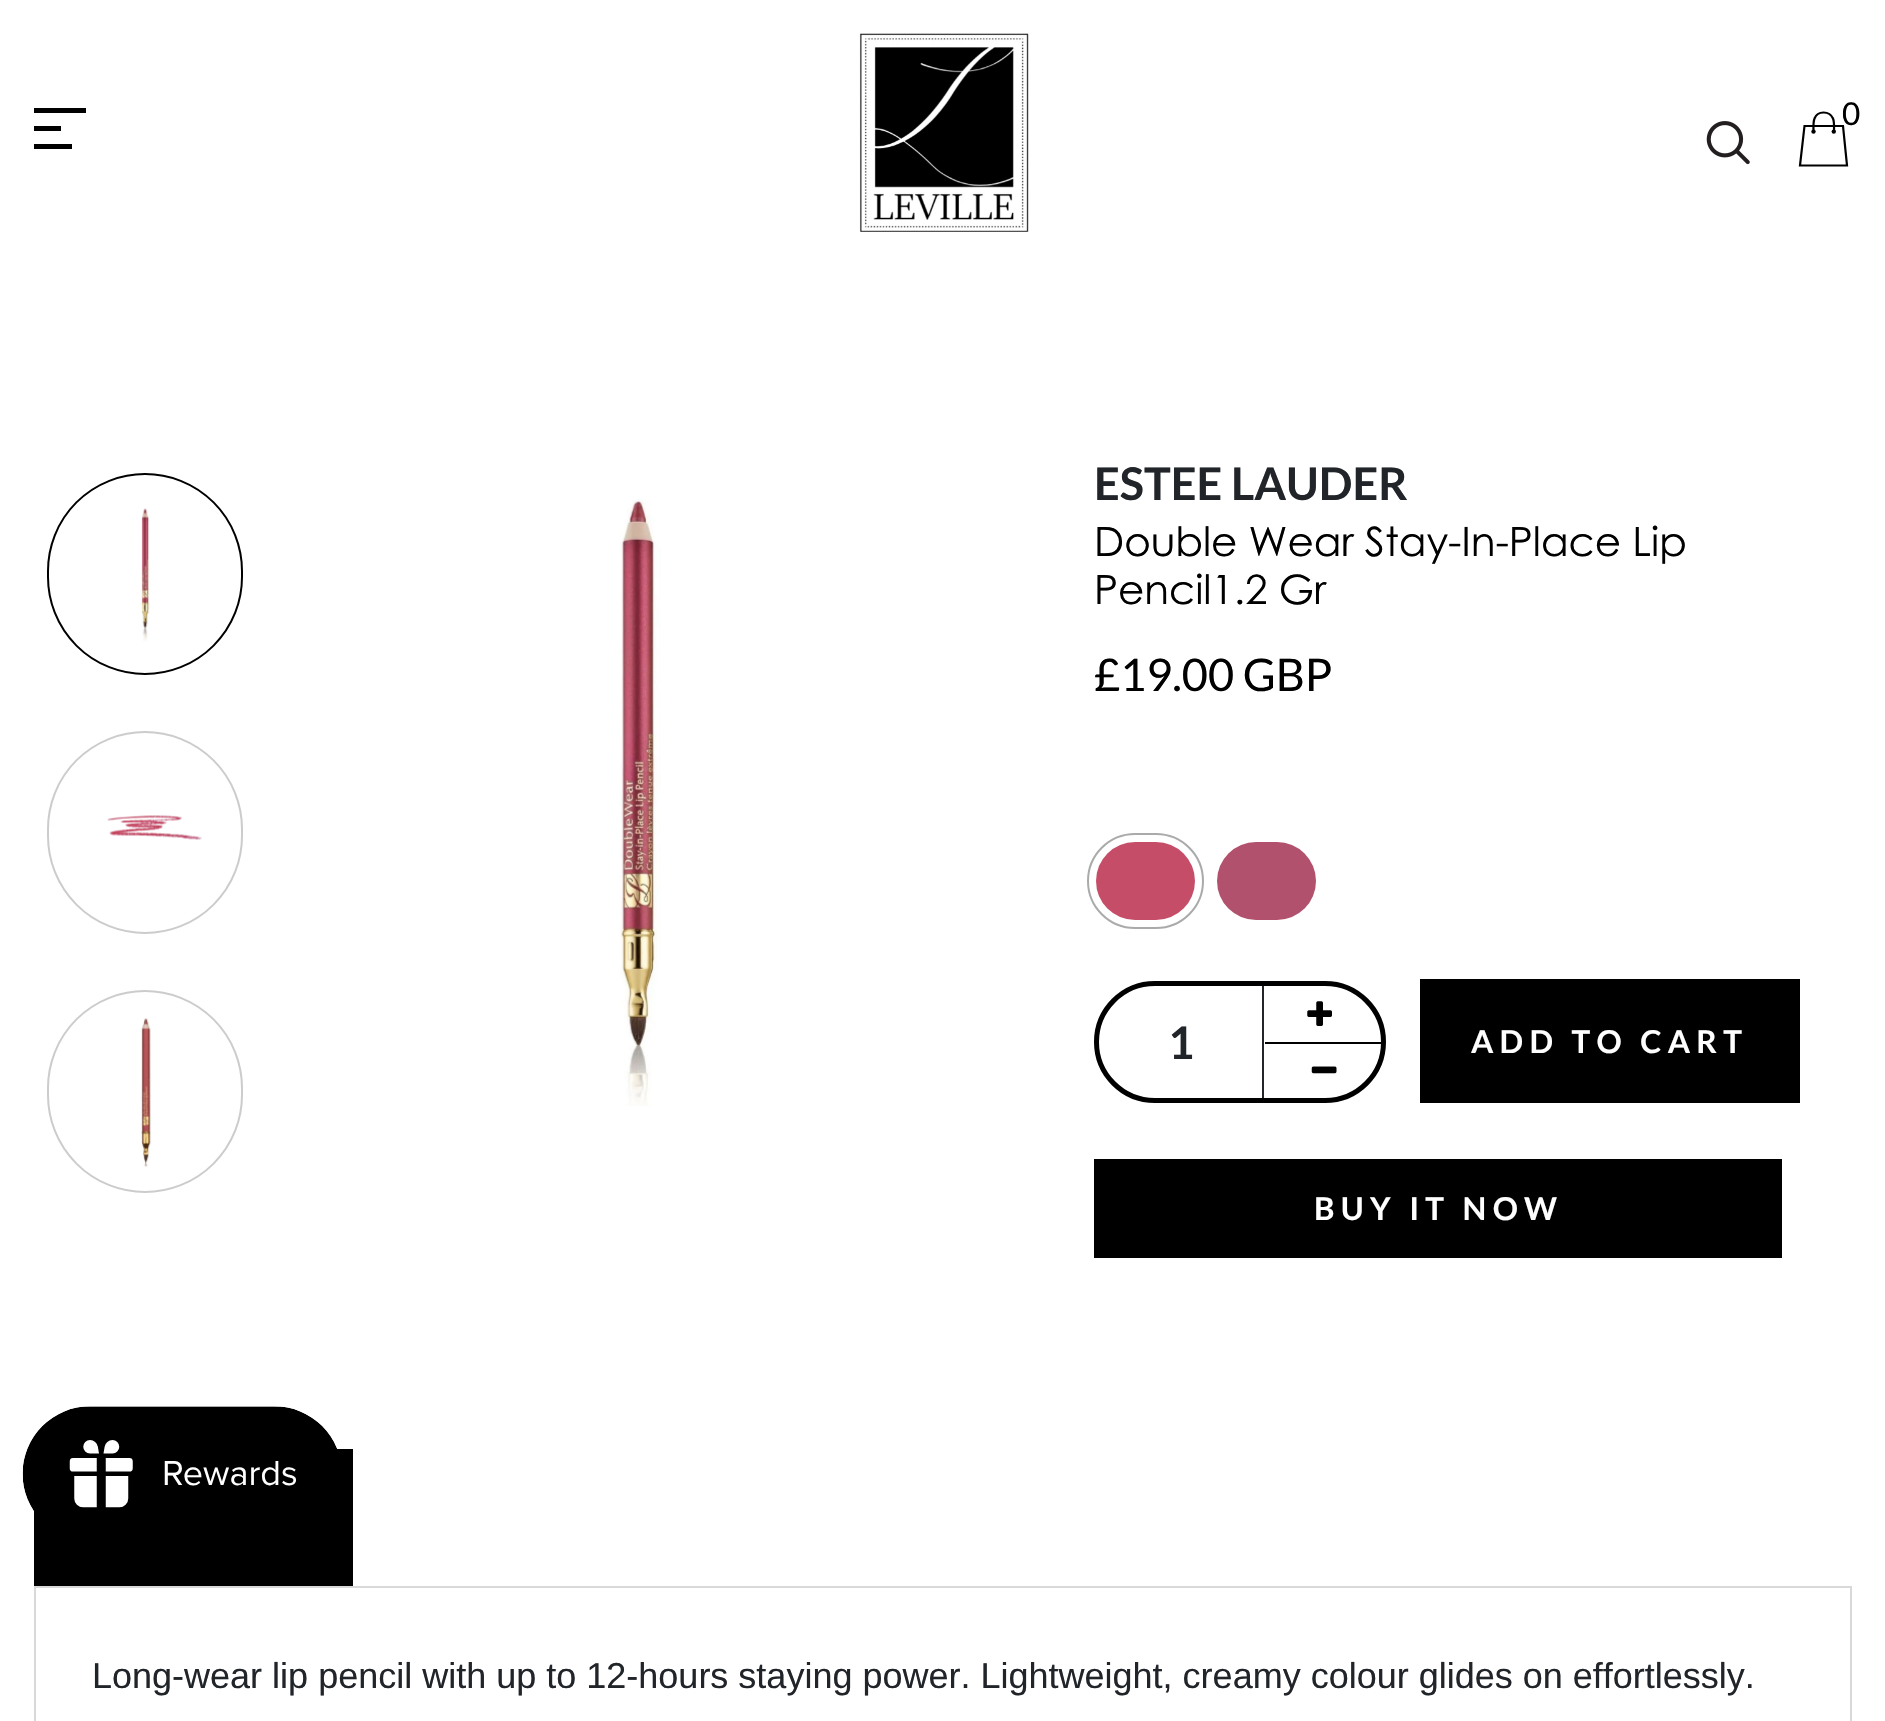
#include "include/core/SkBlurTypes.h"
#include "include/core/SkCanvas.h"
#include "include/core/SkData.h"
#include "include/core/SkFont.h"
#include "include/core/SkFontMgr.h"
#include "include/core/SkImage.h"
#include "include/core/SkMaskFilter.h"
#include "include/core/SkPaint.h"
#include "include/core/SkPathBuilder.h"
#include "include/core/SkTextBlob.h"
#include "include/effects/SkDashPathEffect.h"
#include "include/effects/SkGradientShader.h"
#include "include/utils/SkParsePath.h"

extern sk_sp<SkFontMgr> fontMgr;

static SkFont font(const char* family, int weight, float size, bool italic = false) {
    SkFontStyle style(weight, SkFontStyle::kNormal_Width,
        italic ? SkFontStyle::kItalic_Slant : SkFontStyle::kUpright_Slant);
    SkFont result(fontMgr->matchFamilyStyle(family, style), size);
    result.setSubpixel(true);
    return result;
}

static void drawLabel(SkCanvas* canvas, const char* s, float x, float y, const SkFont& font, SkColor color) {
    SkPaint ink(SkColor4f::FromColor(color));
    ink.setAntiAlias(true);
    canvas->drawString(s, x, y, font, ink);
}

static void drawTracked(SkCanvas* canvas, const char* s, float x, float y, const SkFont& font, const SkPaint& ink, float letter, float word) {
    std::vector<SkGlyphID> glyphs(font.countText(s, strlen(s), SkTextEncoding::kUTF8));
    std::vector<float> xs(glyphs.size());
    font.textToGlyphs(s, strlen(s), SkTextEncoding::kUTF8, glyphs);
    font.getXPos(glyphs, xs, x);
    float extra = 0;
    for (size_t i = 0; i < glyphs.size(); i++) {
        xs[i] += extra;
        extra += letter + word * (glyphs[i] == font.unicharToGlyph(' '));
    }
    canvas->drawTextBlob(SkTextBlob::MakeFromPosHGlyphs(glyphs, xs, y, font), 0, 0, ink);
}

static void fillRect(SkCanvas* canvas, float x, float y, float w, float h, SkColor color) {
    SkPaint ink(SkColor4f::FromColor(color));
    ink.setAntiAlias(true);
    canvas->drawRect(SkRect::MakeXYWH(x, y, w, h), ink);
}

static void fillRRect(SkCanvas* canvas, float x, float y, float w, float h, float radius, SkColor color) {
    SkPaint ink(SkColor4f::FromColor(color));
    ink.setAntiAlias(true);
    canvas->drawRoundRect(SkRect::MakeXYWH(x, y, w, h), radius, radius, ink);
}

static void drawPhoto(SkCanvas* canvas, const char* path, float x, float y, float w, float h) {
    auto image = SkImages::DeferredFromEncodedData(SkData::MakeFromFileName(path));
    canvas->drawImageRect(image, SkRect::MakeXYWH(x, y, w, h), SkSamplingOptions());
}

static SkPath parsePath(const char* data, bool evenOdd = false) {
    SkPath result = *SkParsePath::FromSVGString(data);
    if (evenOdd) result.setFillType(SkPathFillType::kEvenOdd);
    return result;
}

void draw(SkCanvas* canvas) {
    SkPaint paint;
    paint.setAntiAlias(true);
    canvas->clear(0xFFFFFFFF);
    fillRect(canvas, 34, 108, 52, 5, 0xFF000000);
    fillRect(canvas, 34, 126, 27, 5, 0xFF000000);
    fillRect(canvas, 34, 144, 38, 5, 0xFF000000);
    drawPhoto(canvas, "assets/img1.png", 859, 33, 170, 199);
    paint.setStroke(true);
    paint.setStrokeWidth(2.2f);
    paint.setStrokeCap(SkPaint::kRound_Cap);
    paint.setColor(0xFF000000);
    canvas->drawPath(parsePath("M1804.5 126L1800 165.5H1847L1843 126ZM1834 131.5C1834 128 1834.5 122 1833 118.5C1829.5 110.5 1817.5 110.5 1814.5 118.5C1813 122 1813.5 128 1813.5 131.5"), paint);
    SkFont font1 = font("Lato", 400, 31.5f);
    drawLabel(canvas, "0", 1842, 125, font1, 0xFF000000);
    paint.setStroke(false);
    canvas->drawCircle(1813.5f, 131.6f, 2.2f, paint);
    canvas->drawCircle(1833.8f, 131.6f, 2.2f, paint);
    drawPhoto(canvas, "assets/img2.png", 1706, 121, 44, 44);
    paint.setStroke(true);
    paint.setStrokeWidth(2);
    paint.setStrokeCap(SkPaint::kButt_Cap);
    canvas->drawRoundRect(SkRect::MakeXYWH(48, 474, 194, 200), 97, 97, paint);
    drawPhoto(canvas, "assets/img3.png", 141, 508, 9, 134);
    paint.setColor(0xFFCCCCCC);
    canvas->drawRoundRect(SkRect::MakeXYWH(48, 732, 194, 201), 97, 97, paint);
    drawPhoto(canvas, "assets/img4.png", 107, 815, 95, 25);
    canvas->drawRoundRect(SkRect::MakeXYWH(48, 991, 194, 201), 97, 97, paint);
    drawPhoto(canvas, "assets/img5.png", 140, 1018, 12, 149);
    drawPhoto(canvas, "assets/img6.png", 620, 498, 41, 608);
    SkFont font2 = font("Lato", 700, 45);
    drawLabel(canvas, "ESTEE LAUDER", 1094, 500, font2, 0xFF212529);
    SkFont font3 = font("Century Gothic", 500, 40.5f);
    drawLabel(canvas, "Double Wear Stay-In-Place Lip", 1094, 556, font3, 0xFF000000);
    drawLabel(canvas, "Pencil1.2 Gr", 1094, 604, font3, 0xFF000000);
    SkFont font4 = font("Lato", 400, 45);
    drawLabel(canvas, "£19.00 GBP", 1094, 691, font4, 0xFF000000);
    paint.setColor(0xFFAAAAAA);
    canvas->drawRoundRect(SkRect::MakeXYWH(1088, 834, 115, 94), 47, 47, paint);
    fillRRect(canvas, 1096, 842, 99, 78, 39, 0xFFC64D68);
    fillRRect(canvas, 1217, 842, 99, 78, 39, 0xFFB1516D);
    paint.setStrokeWidth(5);
    paint.setColor(0xFF000000);
    canvas->drawRoundRect(SkRect::MakeXYWH(1096.5f, 983.5f, 287, 117), 58.5f, 58.5f, paint);
    drawPhoto(canvas, "assets/img7.png", 1307, 1001, 25, 25);
    fillRect(canvas, 1262, 986, 2, 112, 0xFF232529);
    drawLabel(canvas, "1", 1168, 1059, font2, 0xFF212529);
    fillRect(canvas, 1265, 1042, 117, 2, 0xFF000000);
    drawPhoto(canvas, "assets/img8.png", 1311, 1066, 26, 8);
    fillRect(canvas, 1420, 979, 380, 124, 0xFF000000);
    SkFont font5 = font("Lato", 700, 31.5f);
    paint.setStroke(false);
    paint.setColor(0xFFFFFFFF);
    drawTracked(canvas, "ADD TO CART", 1471, 1053, font5, paint, 6.25f, 0);
    fillRect(canvas, 1094, 1159, 688, 99, 0xFF000000);
    drawTracked(canvas, "BUY IT NOW", 1314, 1220, font5, paint, 6.25f, 0);
    fillRect(canvas, 34, 1449, 319, 137, 0xFF000000);
    paint.setStroke(true);
    paint.setStrokeWidth(2);
    paint.setColor(0xFFD9D9D9);
    canvas->drawRect(SkRect::MakeXYWH(35, 1587, 1816, 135), paint);
    SkFont font6 = font("Liberation Sans", 400, 36);
    drawLabel(canvas, "Long-wear lip pencil with up to 12-hours staying power. Lightweight, creamy colour glides on effortlessly.", 92, 1688, font6, 0xFF212529);
    drawPhoto(canvas, "assets/img9.png", 22, 1406, 315, 133);
}
